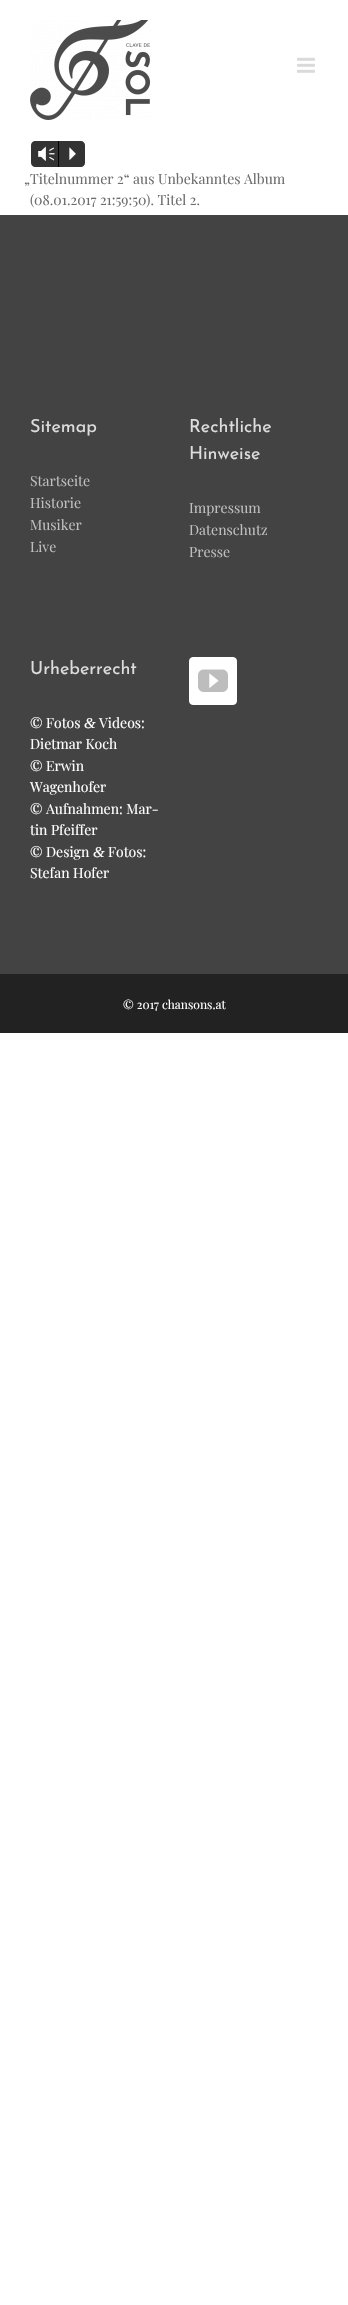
#include "include/core/SkBlurTypes.h"
#include "include/core/SkCanvas.h"
#include "include/core/SkData.h"
#include "include/core/SkFont.h"
#include "include/core/SkFontMgr.h"
#include "include/core/SkImage.h"
#include "include/core/SkMaskFilter.h"
#include "include/core/SkPaint.h"
#include "include/core/SkPathBuilder.h"
#include "include/core/SkTextBlob.h"
#include "include/effects/SkDashPathEffect.h"
#include "include/effects/SkGradientShader.h"
#include "include/utils/SkParsePath.h"

extern sk_sp<SkFontMgr> fontMgr;

static SkFont font(const char* family, int weight, float size, bool italic = false) {
    SkFontStyle style(weight, SkFontStyle::kNormal_Width,
        italic ? SkFontStyle::kItalic_Slant : SkFontStyle::kUpright_Slant);
    SkFont result(fontMgr->matchFamilyStyle(family, style), size);
    result.setSubpixel(true);
    return result;
}

static void drawLabel(SkCanvas* canvas, const char* s, float x, float y, const SkFont& font, SkColor color) {
    SkPaint ink(SkColor4f::FromColor(color));
    ink.setAntiAlias(true);
    canvas->drawString(s, x, y, font, ink);
}

static void fillRect(SkCanvas* canvas, float x, float y, float w, float h, SkColor color) {
    SkPaint ink(SkColor4f::FromColor(color));
    ink.setAntiAlias(true);
    canvas->drawRect(SkRect::MakeXYWH(x, y, w, h), ink);
}

static void drawPhoto(SkCanvas* canvas, const char* path, float x, float y, float w, float h) {
    auto image = SkImages::DeferredFromEncodedData(SkData::MakeFromFileName(path));
    canvas->drawImageRect(image, SkRect::MakeXYWH(x, y, w, h), SkSamplingOptions());
}

static SkPath parsePath(const char* data, bool evenOdd = false) {
    SkPath result = *SkParsePath::FromSVGString(data);
    if (evenOdd) result.setFillType(SkPathFillType::kEvenOdd);
    return result;
}

void draw(SkCanvas* canvas) {
    SkPaint paint;
    paint.setAntiAlias(true);
    canvas->clear(0xFFFFFFFF);
    drawPhoto(canvas, "assets/img1.png", 30, 20, 121, 100);
    drawPhoto(canvas, "assets/img2.png", 297, 57, 18, 16);
    paint.setColor(0xFF333333);
    canvas->drawPath(parsePath("M35 141H58V167H35C33 167 31 165 31 163V145C31 143 33 141 35 141Z"), paint);
    SkFont font1 = font("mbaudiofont", 400, 20);
    drawLabel(canvas, "Vm", 37, 160, font1, 0xFFFFFFFF);
    canvas->drawPath(parsePath("M58 141H81C83 141 85 143 85 145V163C85 165 83 167 81 167H58Z"), paint);
    fillRect(canvas, 58, 141, 1, 26, 0xFF000000);
    drawLabel(canvas, "P", 62, 160, font1, 0xFFFFFFFF);
    SkFont font2 = font("Playfair Display", 400, 14);
    drawLabel(canvas, "„Titelnummer 2“ aus Unbekanntes Album", 24, 184, font2, 0xFF6D6D6D);
    drawLabel(canvas, "(08.01.2017 21:59:50). Titel 2.", 30, 205, font2, 0xFF6D6D6D);
    fillRect(canvas, 0, 215, 348, 759, 0xFF434343);
    SkFont font3 = font("Josefin Sans", 400, 18);
    drawLabel(canvas, "Sitemap", 30, 432, font3, 0xFFDDDDDD);
    drawLabel(canvas, "Startseite", 30, 486, font2, 0xFFBFBFBF);
    drawLabel(canvas, "Historie", 30, 508, font2, 0xFFBFBFBF);
    drawLabel(canvas, "Musiker", 30, 530, font2, 0xFFBFBFBF);
    drawLabel(canvas, "Live", 30, 552, font2, 0xFFBFBFBF);
    drawLabel(canvas, "Rechtliche", 189, 432, font3, 0xFFDDDDDD);
    drawLabel(canvas, "Hinweise", 189, 459, font3, 0xFFDDDDDD);
    drawLabel(canvas, "Impressum", 189, 513, font2, 0xFFBFBFBF);
    drawLabel(canvas, "Datenschutz", 189, 535, font2, 0xFFBFBFBF);
    drawLabel(canvas, "Presse", 189, 557, font2, 0xFFBFBFBF);
    drawLabel(canvas, "Urheberrecht", 30, 674, font3, 0xFFDDDDDD);
    drawLabel(canvas, "© Fotos", 30, 728, font2, 0xFFFFFFFF);
    SkFont font4 = font("Liberation Serif", 400, 15, true);
    drawLabel(canvas, "&", 84, 728, font4, 0xFFFFFFFF);
    drawLabel(canvas, "Videos:", 99, 728, font2, 0xFFFFFFFF);
    drawLabel(canvas, "Dietmar Koch", 30, 749, font2, 0xFFFFFFFF);
    drawLabel(canvas, "© Erwin", 30, 771, font2, 0xFFFFFFFF);
    drawLabel(canvas, "Wagenhofer", 30, 792, font2, 0xFFFFFFFF);
    drawLabel(canvas, "© Aufnahmen: Mar-", 30, 814, font2, 0xFFFFFFFF);
    drawLabel(canvas, "tin Pfeiffer", 30, 835, font2, 0xFFFFFFFF);
    drawLabel(canvas, "© Design", 30, 857, font2, 0xFFFFFFFF);
    drawLabel(canvas, "&", 93, 857, font4, 0xFFFFFFFF);
    drawLabel(canvas, "Fotos:", 108, 857, font2, 0xFFFFFFFF);
    drawLabel(canvas, "Stefan Hofer", 30, 878, font2, 0xFFFFFFFF);
    paint.setColor(0xFFFFFFFF);
    canvas->drawRoundRect(SkRect::MakeXYWH(189.5f, 657.5f, 47, 47), 3.5f, 3.5f, paint);
    paint.setStroke(true);
    paint.setStrokeWidth(1);
    canvas->drawRoundRect(SkRect::MakeXYWH(189.5f, 657.5f, 47, 47), 3.5f, 3.5f, paint);
    drawPhoto(canvas, "assets/img3.png", 198, 669, 30, 23);
    fillRect(canvas, 0, 974, 348, 59, 0xFF222222);
    SkFont font5 = font("Playfair Display", 400, 12);
    drawLabel(canvas, "© 2017 chansons.at", 123, 1009, font5, 0xFFFFFFFF);
}
